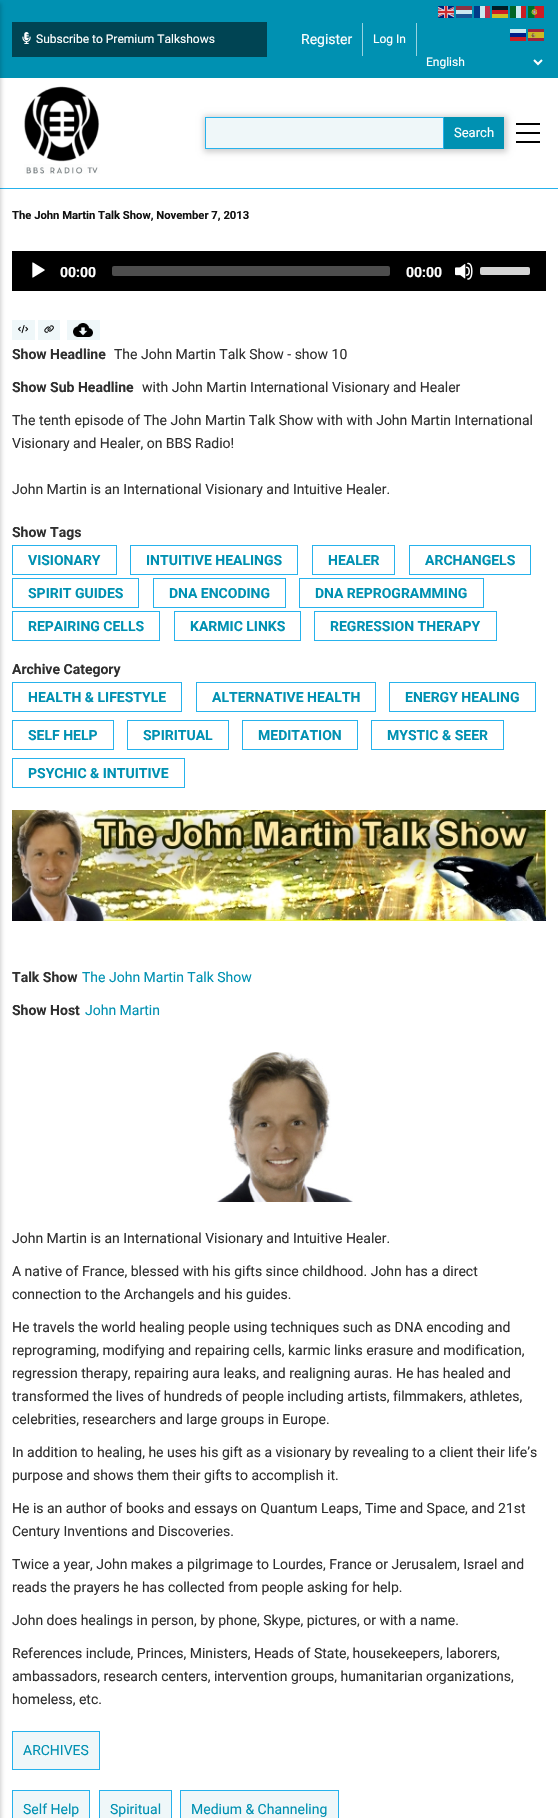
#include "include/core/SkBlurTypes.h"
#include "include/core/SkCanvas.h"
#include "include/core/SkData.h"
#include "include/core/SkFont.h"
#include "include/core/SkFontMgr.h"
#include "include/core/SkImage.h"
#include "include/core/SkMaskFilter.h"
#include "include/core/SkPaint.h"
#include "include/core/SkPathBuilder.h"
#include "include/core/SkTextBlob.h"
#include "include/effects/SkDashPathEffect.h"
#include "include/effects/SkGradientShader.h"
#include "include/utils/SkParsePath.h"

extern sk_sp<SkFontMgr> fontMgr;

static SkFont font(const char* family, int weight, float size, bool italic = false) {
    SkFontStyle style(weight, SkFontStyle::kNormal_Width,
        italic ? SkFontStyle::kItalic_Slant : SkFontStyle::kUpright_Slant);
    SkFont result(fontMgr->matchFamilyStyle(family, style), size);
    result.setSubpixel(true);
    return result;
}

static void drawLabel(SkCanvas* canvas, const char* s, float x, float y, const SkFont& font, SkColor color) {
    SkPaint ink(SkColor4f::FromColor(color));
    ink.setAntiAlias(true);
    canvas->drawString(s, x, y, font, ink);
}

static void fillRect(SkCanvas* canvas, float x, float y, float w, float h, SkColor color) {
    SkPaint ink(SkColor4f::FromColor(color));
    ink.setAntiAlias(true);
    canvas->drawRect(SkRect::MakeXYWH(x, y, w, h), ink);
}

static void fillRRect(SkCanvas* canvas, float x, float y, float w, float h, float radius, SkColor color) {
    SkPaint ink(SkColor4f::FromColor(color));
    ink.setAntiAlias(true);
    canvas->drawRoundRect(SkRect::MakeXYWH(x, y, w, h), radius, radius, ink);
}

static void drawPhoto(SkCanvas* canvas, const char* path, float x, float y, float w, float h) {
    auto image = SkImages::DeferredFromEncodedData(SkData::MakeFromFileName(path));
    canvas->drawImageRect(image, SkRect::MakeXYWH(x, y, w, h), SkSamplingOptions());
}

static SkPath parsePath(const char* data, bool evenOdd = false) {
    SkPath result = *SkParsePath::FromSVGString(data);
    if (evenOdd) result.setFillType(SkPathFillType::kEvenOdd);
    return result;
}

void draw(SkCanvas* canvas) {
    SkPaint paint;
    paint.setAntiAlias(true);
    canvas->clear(0xFFFFFFFF);
    fillRect(canvas, 0, 0, 558, 78, 0xFF0091B2);
    fillRect(canvas, 0, 188, 558, 1, 0xFF26B2EC);
    paint.setColor(0x33000000);
    paint.setMaskFilter(SkMaskFilter::MakeBlur(kNormal_SkBlurStyle, 2));
    canvas->drawRect(SkRect::MakeXYWH(-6, 3, 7, 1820), paint);
    paint.setMaskFilter(nullptr);
    fillRect(canvas, 12, 22, 255, 35, 0xFF004453);
    drawPhoto(canvas, "assets/img1.png", 22, 32, 9, 12);
    SkFont font1 = font("Roboto", 400, 12);
    drawLabel(canvas, "Subscribe to Premium Talkshows", 36, 43, font1, 0xFFFFFFFF);
    fillRect(canvas, 362, 23, 1, 33, 0xFF99D3E0);
    SkFont font2 = font("Roboto", 400, 14);
    drawLabel(canvas, "Register", 301, 44, font2, 0xFFFFFFFF);
    fillRect(canvas, 416, 23, 1, 33, 0xFF99D3E0);
    drawLabel(canvas, "Log In", 373, 43, font1, 0xFFFFFFFF);
    drawPhoto(canvas, "assets/img2.png", 438, 6, 16, 12);
    fillRect(canvas, 456, 6, 16, 4, 0xFF8B3344);
    fillRect(canvas, 474, 6, 6, 12, 0xFF003B89);
    fillRect(canvas, 480, 6, 5, 12, 0xFFCCE9F0);
    fillRect(canvas, 485, 6, 5, 12, 0xFFC2304A);
    fillRect(canvas, 492, 6, 16, 4, 0xFF001D24);
    fillRect(canvas, 510, 6, 6, 12, 0xFF006324);
    fillRect(canvas, 516, 6, 5, 12, 0xFFCCE9F0);
    fillRect(canvas, 521, 6, 5, 12, 0xFFCA1D24);
    drawPhoto(canvas, "assets/img3.png", 528, 6, 16, 12);
    fillRect(canvas, 456, 10, 16, 4, 0xFFCCE9F0);
    fillRect(canvas, 492, 10, 16, 4, 0xFFCC1D24);
    fillRect(canvas, 456, 14, 16, 4, 0xFF1A5593);
    fillRect(canvas, 492, 14, 16, 4, 0xFFCCC024);
    fillRect(canvas, 510, 29, 16, 4, 0xFFCCE9F0);
    drawPhoto(canvas, "assets/img4.png", 528, 29, 16, 12);
    fillRect(canvas, 510, 33, 16, 4, 0xFF011E88);
    fillRect(canvas, 510, 37, 16, 4, 0xFFCB1E24);
    paint.setStroke(true);
    paint.setStrokeWidth(2);
    paint.setColor(0xFFFFFFFF);
    canvas->drawPath(parsePath("M534 60L538 64L542 60"), paint);
    drawLabel(canvas, "English", 426, 66, font1, 0xFFFFFFFF);
    drawPhoto(canvas, "assets/img5.png", 24, 86, 76, 88);
    fillRect(canvas, 516, 123, 24, 2, 0xFF000000);
    fillRect(canvas, 516, 132, 24, 2, 0xFF000000);
    fillRect(canvas, 516, 141, 24, 2, 0xFF000000);
    paint.setStroke(false);
    paint.setColor(0x33000000);
    paint.setMaskFilter(SkMaskFilter::MakeBlur(kNormal_SkBlurStyle, 3));
    canvas->drawRect(SkRect::MakeXYWH(204, 116, 303, 36), paint);
    paint.setMaskFilter(nullptr);
    paint.setColor(0xFFEFF7F9);
    canvas->drawRect(SkRect::MakeXYWH(205.5f, 117.5f, 238, 31), paint);
    paint.setStroke(true);
    paint.setStrokeWidth(1);
    paint.setColor(0xFF26B2EC);
    canvas->drawRect(SkRect::MakeXYWH(205.5f, 117.5f, 238, 31), paint);
    fillRect(canvas, 444, 117, 60, 32, 0xFF0091B2);
    SkFont font3 = font("Roboto", 400, 13);
    drawLabel(canvas, "Search", 454, 137, font3, 0xFFFFFFFF);
    SkFont font4 = font("Roboto", 700, 11.25f);
    drawLabel(canvas, "The John Martin Talk Show, November 7, 2013", 12, 219, font4, 0xFF111111);
    fillRect(canvas, 12, 251, 534, 40, 0xFF000000);
    drawPhoto(canvas, "assets/img6.png", 32, 262, 13, 16);
    SkFont font5 = font("Roboto", 700, 14);
    drawLabel(canvas, "00:00", 60, 277, font5, 0xFFFFFFFF);
    fillRRect(canvas, 112, 266, 278, 10, 2, 0xFF4D4D4D);
    drawLabel(canvas, "00:00", 406, 277, font5, 0xFFFFFFFF);
    drawPhoto(canvas, "assets/img7.png", 455, 262, 18, 18);
    fillRRect(canvas, 480, 267, 50, 8, 2, 0xFF282828);
    fillRRect(canvas, 480, 267, 50, 8, 2, 0xCCFFFFFF);
    fillRect(canvas, 12, 320, 23, 20, 0xFFEFF7F9);
    drawPhoto(canvas, "assets/img8.png", 18, 325, 11, 9);
    fillRect(canvas, 38, 320, 22, 20, 0xFFEFF7F9);
    drawPhoto(canvas, "assets/img9.png", 44, 325, 10, 8);
    fillRect(canvas, 67, 320, 33, 20, 0xFFEFF7F9);
    drawPhoto(canvas, "assets/img10.png", 73, 323, 20, 14);
    drawLabel(canvas, "Show Headline", 12, 359, font5, 0xFF303030);
    drawLabel(canvas, "The John Martin Talk Show - show 10", 114, 359, font2, 0xFF303030);
    drawLabel(canvas, "Show Sub Headline", 12, 392, font5, 0xFF303030);
    drawLabel(canvas, "with John Martin International Visionary and Healer", 142, 392, font2, 0xFF303030);
    drawLabel(canvas, "The tenth episode of The John Martin Talk Show with with John Martin International", 12, 425, font2, 0xFF303030);
    drawLabel(canvas, "Visionary and Healer, on BBS Radio!", 12, 448, font2, 0xFF303030);
    drawLabel(canvas, "John Martin is an International Visionary and Intuitive Healer.", 12, 494, font2, 0xFF303030);
    drawLabel(canvas, "Show Tags", 12, 537, font5, 0xFF303030);
    canvas->drawRect(SkRect::MakeXYWH(12.5f, 545.5f, 104, 29), paint);
    drawLabel(canvas, "VISIONARY", 28, 565, font5, 0xFF0091B2);
    canvas->drawRect(SkRect::MakeXYWH(130.5f, 545.5f, 167, 29), paint);
    drawLabel(canvas, "INTUITIVE HEALINGS", 146, 565, font5, 0xFF0091B2);
    canvas->drawRect(SkRect::MakeXYWH(312.5f, 545.5f, 82, 29), paint);
    drawLabel(canvas, "HEALER", 328, 565, font5, 0xFF0091B2);
    canvas->drawRect(SkRect::MakeXYWH(409.5f, 545.5f, 121, 29), paint);
    drawLabel(canvas, "ARCHANGELS", 425, 565, font5, 0xFF0091B2);
    canvas->drawRect(SkRect::MakeXYWH(12.5f, 578.5f, 126, 29), paint);
    drawLabel(canvas, "SPIRIT GUIDES", 28, 598, font5, 0xFF0091B2);
    canvas->drawRect(SkRect::MakeXYWH(153.5f, 578.5f, 132, 29), paint);
    drawLabel(canvas, "DNA ENCODING", 169, 598, font5, 0xFF0091B2);
    canvas->drawRect(SkRect::MakeXYWH(299.5f, 578.5f, 184, 29), paint);
    drawLabel(canvas, "DNA REPROGRAMMING", 315, 598, font5, 0xFF0091B2);
    canvas->drawRect(SkRect::MakeXYWH(12.5f, 611.5f, 147, 29), paint);
    drawLabel(canvas, "REPAIRING CELLS", 28, 631, font5, 0xFF0091B2);
    canvas->drawRect(SkRect::MakeXYWH(174.5f, 611.5f, 126, 29), paint);
    drawLabel(canvas, "KARMIC LINKS", 190, 631, font5, 0xFF0091B2);
    canvas->drawRect(SkRect::MakeXYWH(314.5f, 611.5f, 182, 29), paint);
    drawLabel(canvas, "REGRESSION THERAPY", 330, 631, font5, 0xFF0091B2);
    drawLabel(canvas, "Archive Category", 12, 674, font5, 0xFF303030);
    canvas->drawRect(SkRect::MakeXYWH(12.5f, 682.5f, 169, 29), paint);
    drawLabel(canvas, "HEALTH & LIFESTYLE", 28, 702, font5, 0xFF0091B2);
    canvas->drawRect(SkRect::MakeXYWH(196.5f, 682.5f, 179, 29), paint);
    drawLabel(canvas, "ALTERNATIVE HEALTH", 212, 702, font5, 0xFF0091B2);
    canvas->drawRect(SkRect::MakeXYWH(389.5f, 682.5f, 146, 29), paint);
    drawLabel(canvas, "ENERGY HEALING", 405, 702, font5, 0xFF0091B2);
    canvas->drawRect(SkRect::MakeXYWH(12.5f, 720.5f, 101, 29), paint);
    drawLabel(canvas, "SELF HELP", 28, 740, font5, 0xFF0091B2);
    canvas->drawRect(SkRect::MakeXYWH(127.5f, 720.5f, 101, 29), paint);
    drawLabel(canvas, "SPIRITUAL", 143, 740, font5, 0xFF0091B2);
    canvas->drawRect(SkRect::MakeXYWH(242.5f, 720.5f, 115, 29), paint);
    drawLabel(canvas, "MEDITATION", 258, 740, font5, 0xFF0091B2);
    canvas->drawRect(SkRect::MakeXYWH(371.5f, 720.5f, 132, 29), paint);
    drawLabel(canvas, "MYSTIC & SEER", 387, 740, font5, 0xFF0091B2);
    canvas->drawRect(SkRect::MakeXYWH(12.5f, 758.5f, 172, 29), paint);
    drawLabel(canvas, "PSYCHIC & INTUITIVE", 28, 778, font5, 0xFF0091B2);
    drawPhoto(canvas, "assets/img11.png", 12, 810, 534, 111);
    drawLabel(canvas, "Talk Show", 12, 982, font5, 0xFF303030);
    drawLabel(canvas, "The John Martin Talk Show", 82, 982, font2, 0xFF0091B2);
    drawLabel(canvas, "Show Host", 12, 1015, font5, 0xFF303030);
    drawLabel(canvas, "John Martin", 85, 1015, font2, 0xFF0091B2);
    drawPhoto(canvas, "assets/img12.png", 216, 1052, 137, 150);
    drawLabel(canvas, "John Martin is an International Visionary and Intuitive Healer.", 12, 1243, font2, 0xFF303030);
    drawLabel(canvas, "A native of France, blessed with his gifts since childhood. John has a direct", 12, 1276, font2, 0xFF303030);
    drawLabel(canvas, "connection to the Archangels and his guides.", 12, 1299, font2, 0xFF303030);
    drawLabel(canvas, "He travels the world healing people using techniques such as DNA encoding and", 12, 1332, font2, 0xFF303030);
    drawLabel(canvas, "reprograming, modifying and repairing cells, karmic links erasure and modification,", 12, 1355, font2, 0xFF303030);
    drawLabel(canvas, "regression therapy, repairing aura leaks, and realigning auras. He has healed and", 12, 1378, font2, 0xFF303030);
    drawLabel(canvas, "transformed the lives of hundreds of people including artists, filmmakers, athletes,", 12, 1401, font2, 0xFF303030);
    drawLabel(canvas, "celebrities, researchers and large groups in Europe.", 12, 1424, font2, 0xFF303030);
    drawLabel(canvas, "In addition to healing, he uses his gift as a visionary by revealing to a client their life’s", 12, 1457, font2, 0xFF303030);
    drawLabel(canvas, "purpose and shows them their gifts to accomplish it.", 12, 1480, font2, 0xFF303030);
    drawLabel(canvas, "He is an author of books and essays on Quantum Leaps, Time and Space, and 21st", 12, 1513, font2, 0xFF303030);
    drawLabel(canvas, "Century Inventions and Discoveries.", 12, 1536, font2, 0xFF303030);
    drawLabel(canvas, "Twice a year, John makes a pilgrimage to Lourdes, France or Jerusalem, Israel and", 12, 1569, font2, 0xFF303030);
    drawLabel(canvas, "reads the prayers he has collected from people asking for help.", 12, 1592, font2, 0xFF303030);
    drawLabel(canvas, "John does healings in person, by phone, Skype, pictures, or with a name.", 12, 1625, font2, 0xFF303030);
    drawLabel(canvas, "References include, Princes, Ministers, Heads of State, housekeepers, laborers,", 12, 1658, font2, 0xFF303030);
    drawLabel(canvas, "ambassadors, research centers, intervention groups, humanitarian organizations,", 12, 1681, font2, 0xFF303030);
    drawLabel(canvas, "homeless, etc.", 12, 1704, font2, 0xFF303030);
    paint.setStroke(false);
    paint.setColor(0xFFEFF7F9);
    canvas->drawRect(SkRect::MakeXYWH(12.5f, 1731.5f, 87, 38), paint);
    paint.setStroke(true);
    paint.setColor(0xFF26B2EC);
    canvas->drawRect(SkRect::MakeXYWH(12.5f, 1731.5f, 87, 38), paint);
    drawLabel(canvas, "ARCHIVES", 23, 1755, font2, 0xFF0091B2);
    paint.setStroke(false);
    paint.setColor(0xFFEFF7F9);
    canvas->drawRect(SkRect::MakeXYWH(12.5f, 1790.5f, 77, 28), paint);
    paint.setStroke(true);
    paint.setColor(0xFF26B2EC);
    canvas->drawRect(SkRect::MakeXYWH(12.5f, 1790.5f, 77, 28), paint);
    drawLabel(canvas, "Self Help", 23, 1814, font2, 0xFF0091B2);
    paint.setStroke(false);
    paint.setColor(0xFFEFF7F9);
    canvas->drawRect(SkRect::MakeXYWH(99.5f, 1790.5f, 72, 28), paint);
    paint.setStroke(true);
    paint.setColor(0xFF26B2EC);
    canvas->drawRect(SkRect::MakeXYWH(99.5f, 1790.5f, 72, 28), paint);
    drawLabel(canvas, "Spiritual", 110, 1814, font2, 0xFF0091B2);
    paint.setStroke(false);
    paint.setColor(0xFFEFF7F9);
    canvas->drawRect(SkRect::MakeXYWH(180.5f, 1790.5f, 158, 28), paint);
    paint.setStroke(true);
    paint.setColor(0xFF26B2EC);
    canvas->drawRect(SkRect::MakeXYWH(180.5f, 1790.5f, 158, 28), paint);
    drawLabel(canvas, "Medium & Channeling", 191, 1814, font2, 0xFF0091B2);
}
